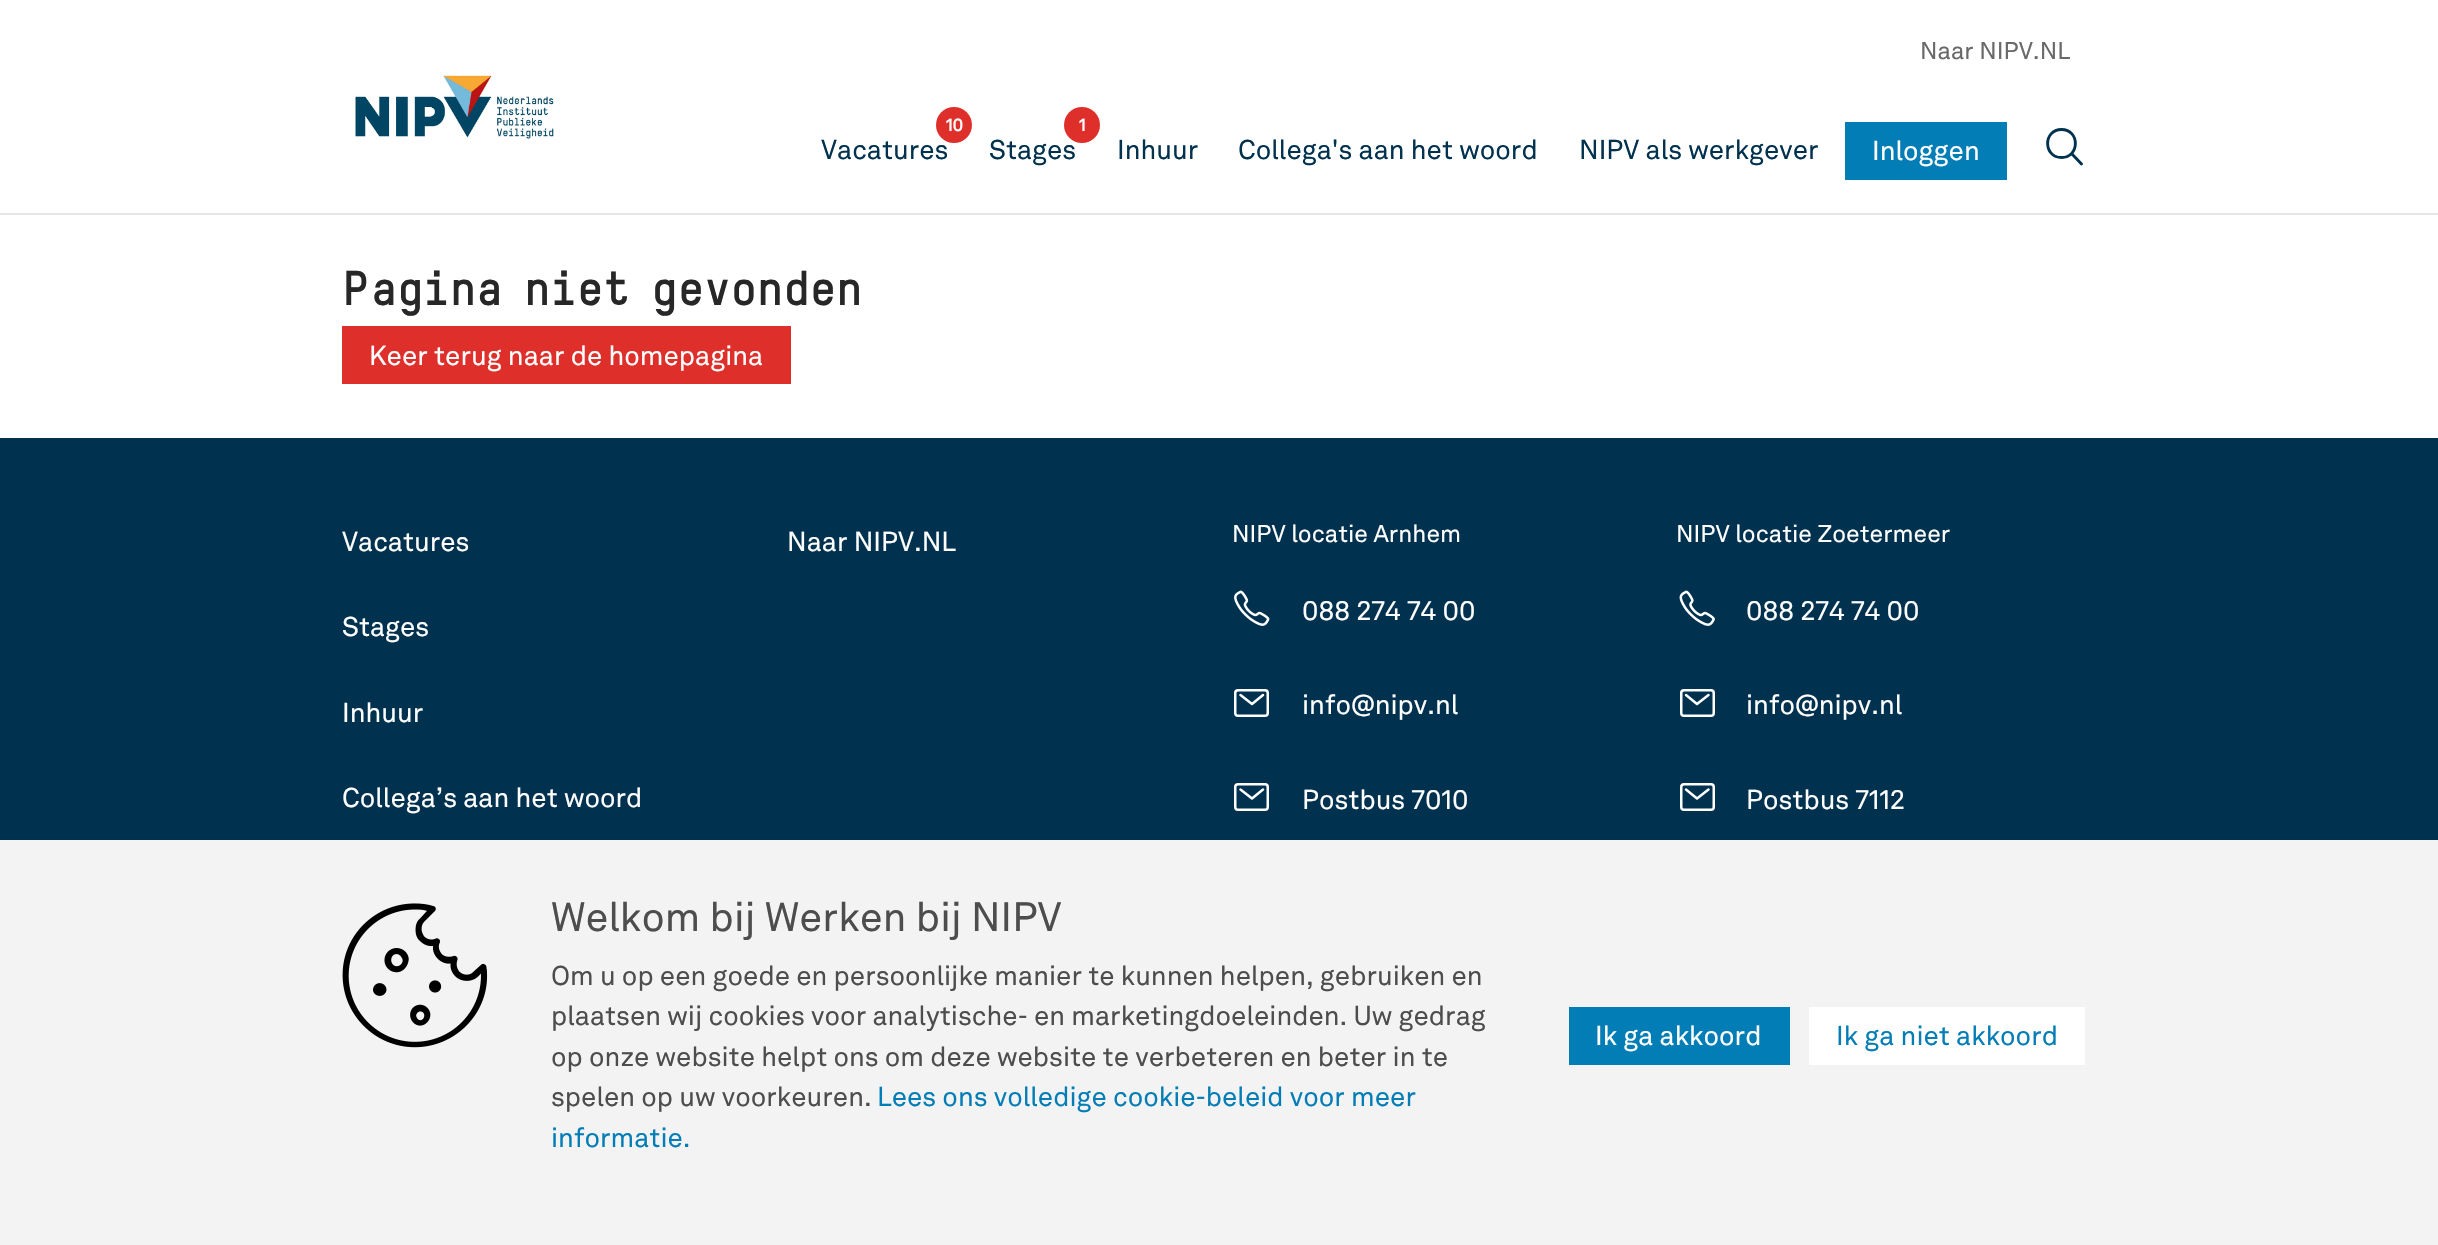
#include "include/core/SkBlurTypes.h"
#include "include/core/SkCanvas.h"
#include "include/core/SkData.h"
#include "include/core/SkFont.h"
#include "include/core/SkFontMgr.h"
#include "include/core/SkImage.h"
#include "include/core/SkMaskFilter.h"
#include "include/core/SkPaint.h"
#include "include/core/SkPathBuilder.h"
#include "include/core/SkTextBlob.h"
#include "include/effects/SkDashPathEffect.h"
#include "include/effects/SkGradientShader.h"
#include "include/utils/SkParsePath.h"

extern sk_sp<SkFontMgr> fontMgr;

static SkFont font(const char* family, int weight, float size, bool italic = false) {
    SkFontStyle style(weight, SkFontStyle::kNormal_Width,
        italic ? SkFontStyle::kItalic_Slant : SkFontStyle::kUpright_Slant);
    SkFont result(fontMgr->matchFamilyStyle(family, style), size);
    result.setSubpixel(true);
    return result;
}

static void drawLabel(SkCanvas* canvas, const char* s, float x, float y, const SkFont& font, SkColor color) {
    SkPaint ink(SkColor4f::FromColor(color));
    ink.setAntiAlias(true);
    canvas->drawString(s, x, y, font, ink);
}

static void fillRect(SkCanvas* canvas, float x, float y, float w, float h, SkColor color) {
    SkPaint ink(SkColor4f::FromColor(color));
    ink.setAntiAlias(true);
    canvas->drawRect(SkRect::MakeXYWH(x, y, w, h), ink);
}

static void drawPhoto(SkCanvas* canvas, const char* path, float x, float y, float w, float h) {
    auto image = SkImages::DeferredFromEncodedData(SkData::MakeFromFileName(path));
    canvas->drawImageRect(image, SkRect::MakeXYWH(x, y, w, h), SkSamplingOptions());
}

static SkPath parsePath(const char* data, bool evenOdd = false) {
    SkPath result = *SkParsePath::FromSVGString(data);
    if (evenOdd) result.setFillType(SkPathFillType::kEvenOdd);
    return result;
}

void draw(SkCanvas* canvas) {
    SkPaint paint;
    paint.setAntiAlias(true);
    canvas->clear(0xFFFFFFFF);
    fillRect(canvas, 0, 213, 2438, 2, 0xFFE6E6E6);
    drawPhoto(canvas, "assets/img1.png", 355, 75, 200, 64);
    SkFont font1 = font("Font", 400, 24);
    drawLabel(canvas, "Naar NIPV.NL", 1920, 59, font1, 0xFF696969);
    paint.setColor(0xFFDF2F2A);
    canvas->drawCircle(954, 125, 18, paint);
    SkFont font2 = font("Font", 700, 17);
    drawLabel(canvas, "10", 946, 131, font2, 0xFFFFFFFF);
    SkFont font3 = font("Font", 400, 27);
    drawLabel(canvas, "Vacatures", 821, 159, font3, 0xFF00314E);
    canvas->drawCircle(1082, 125, 18, paint);
    drawLabel(canvas, "1", 1079, 131, font2, 0xFFFFFFFF);
    drawLabel(canvas, "Stages", 989, 159, font3, 0xFF00314E);
    drawLabel(canvas, "Inhuur", 1117, 159, font3, 0xFF00314E);
    drawLabel(canvas, "Collega's aan het woord", 1238, 159, font3, 0xFF00314E);
    drawLabel(canvas, "NIPV als werkgever", 1579, 159, font3, 0xFF00314E);
    fillRect(canvas, 1845, 122, 162, 58, 0xFF037DB6);
    drawLabel(canvas, "Inloggen", 1872, 160, font3, 0xFFFFFFFF);
    paint.setStroke(true);
    paint.setStrokeWidth(2.9f);
    paint.setColor(0xFF00314E);
    canvas->drawPath(parsePath("M2061.5 129.5C2043 129.5 2043 157.5 2061.5 157.5C2080 157.5 2080 129.5 2061.5 129.5Z"), paint);
    paint.setStrokeCap(SkPaint::kRound_Cap);
    canvas->drawPath(parsePath("M2072 154L2081.5 164"), paint);
    SkFont font4 = font("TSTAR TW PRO", 700, 48);
    drawLabel(canvas, "Pagina niet gevonden", 342, 305, font4, 0xFF272727);
    fillRect(canvas, 342, 326, 449, 58, 0xFFDF2F2A);
    drawLabel(canvas, "Keer terug naar de homepagina", 369, 365, font3, 0xFFFFFFFF);
    fillRect(canvas, 0, 438, 2438, 402, 0xFF00314E);
    drawLabel(canvas, "Vacatures", 342, 551, font3, 0xFFFFFFFF);
    drawLabel(canvas, "Stages", 342, 636, font3, 0xFFFFFFFF);
    drawLabel(canvas, "Inhuur", 342, 722, font3, 0xFFFFFFFF);
    drawLabel(canvas, "Collega’s aan het woord", 342, 807, font3, 0xFFFFFFFF);
    drawLabel(canvas, "Naar NIPV.NL", 787, 551, font3, 0xFFFFFFFF);
    drawLabel(canvas, "NIPV locatie Arnhem", 1232, 542, font1, 0xFFFFFFFF);
    drawPhoto(canvas, "assets/img2.png", 1234, 590, 36, 36);
    drawLabel(canvas, "088 274 74 00", 1302, 620, font3, 0xFFFFFFFF);
    paint.setStrokeWidth(2.5f);
    paint.setStrokeCap(SkPaint::kButt_Cap);
    paint.setColor(0xFFFFFFFF);
    canvas->drawRoundRect(SkRect::MakeXYWH(1235.25f, 690.25f, 32.5f, 25.5f), 2.75f, 2.75f, paint);
    paint.setStrokeCap(SkPaint::kRound_Cap);
    paint.setStrokeJoin(SkPaint::kRound_Join);
    canvas->drawPath(parsePath("M1240.5 695L1252 704L1263 695"), paint);
    drawLabel(canvas, "info@nipv.nl", 1302, 714, font3, 0xFFFFFFFF);
    paint.setStrokeCap(SkPaint::kButt_Cap);
    paint.setStrokeJoin(SkPaint::kMiter_Join);
    canvas->drawRoundRect(SkRect::MakeXYWH(1235.25f, 784.25f, 32.5f, 25.5f), 2.75f, 2.75f, paint);
    paint.setStrokeCap(SkPaint::kRound_Cap);
    paint.setStrokeJoin(SkPaint::kRound_Join);
    canvas->drawPath(parsePath("M1240.5 789.5L1252 798.5L1263 789.5"), paint);
    drawLabel(canvas, "Postbus 7010", 1302, 809, font3, 0xFFFFFFFF);
    drawLabel(canvas, "NIPV locatie Zoetermeer", 1676, 542, font1, 0xFFFFFFFF);
    drawPhoto(canvas, "assets/img3.png", 1679, 590, 36, 36);
    drawLabel(canvas, "088 274 74 00", 1746, 620, font3, 0xFFFFFFFF);
    paint.setStrokeCap(SkPaint::kButt_Cap);
    paint.setStrokeJoin(SkPaint::kMiter_Join);
    canvas->drawRoundRect(SkRect::MakeXYWH(1681.25f, 690.25f, 32.5f, 25.5f), 2.75f, 2.75f, paint);
    paint.setStrokeCap(SkPaint::kRound_Cap);
    paint.setStrokeJoin(SkPaint::kRound_Join);
    canvas->drawPath(parsePath("M1686 695L1697 704L1708.5 695"), paint);
    drawLabel(canvas, "info@nipv.nl", 1746, 714, font3, 0xFFFFFFFF);
    paint.setStrokeCap(SkPaint::kButt_Cap);
    paint.setStrokeJoin(SkPaint::kMiter_Join);
    canvas->drawRoundRect(SkRect::MakeXYWH(1681.25f, 784.25f, 32.5f, 25.5f), 2.75f, 2.75f, paint);
    paint.setStrokeCap(SkPaint::kRound_Cap);
    paint.setStrokeJoin(SkPaint::kRound_Join);
    canvas->drawPath(parsePath("M1686 789.5L1697 798.5L1708.5 789.5"), paint);
    drawLabel(canvas, "Postbus 7112", 1746, 809, font3, 0xFFFFFFFF);
    fillRect(canvas, 0, 840, 2438, 405, 0xFFF3F3F3);
    drawPhoto(canvas, "assets/img4.png", 342, 903, 146, 145);
    SkFont font5 = font("Font", 400, 40.5f);
    drawLabel(canvas, "Welkom bij Werken bij NIPV", 551, 931, font5, 0xFF4D4D4D);
    drawLabel(canvas, "Om u op een goede en persoonlijke manier te kunnen helpen, gebruiken en", 551, 985, font3, 0xFF4D4D4D);
    drawLabel(canvas, "plaatsen wij cookies voor analytische- en marketingdoeleinden. Uw gedrag", 551, 1025, font3, 0xFF4D4D4D);
    drawLabel(canvas, "op onze website helpt ons om deze website te verbeteren en beter in te", 551, 1066, font3, 0xFF4D4D4D);
    drawLabel(canvas, "spelen op uw voorkeuren.", 551, 1106, font3, 0xFF4D4D4D);
    drawLabel(canvas, "Lees ons volledige cookie-beleid voor meer", 877, 1106, font3, 0xFF037DB6);
    drawLabel(canvas, "informatie.", 551, 1147, font3, 0xFF037DB6);
    fillRect(canvas, 1569, 1007, 221, 58, 0xFF037DB6);
    drawLabel(canvas, "Ik ga akkoord", 1595, 1045, font3, 0xFFFFFFFF);
    fillRect(canvas, 1809, 1007, 276, 58, 0xFFFFFFFF);
    drawLabel(canvas, "Ik ga niet akkoord", 1836, 1045, font3, 0xFF037DB6);
}
